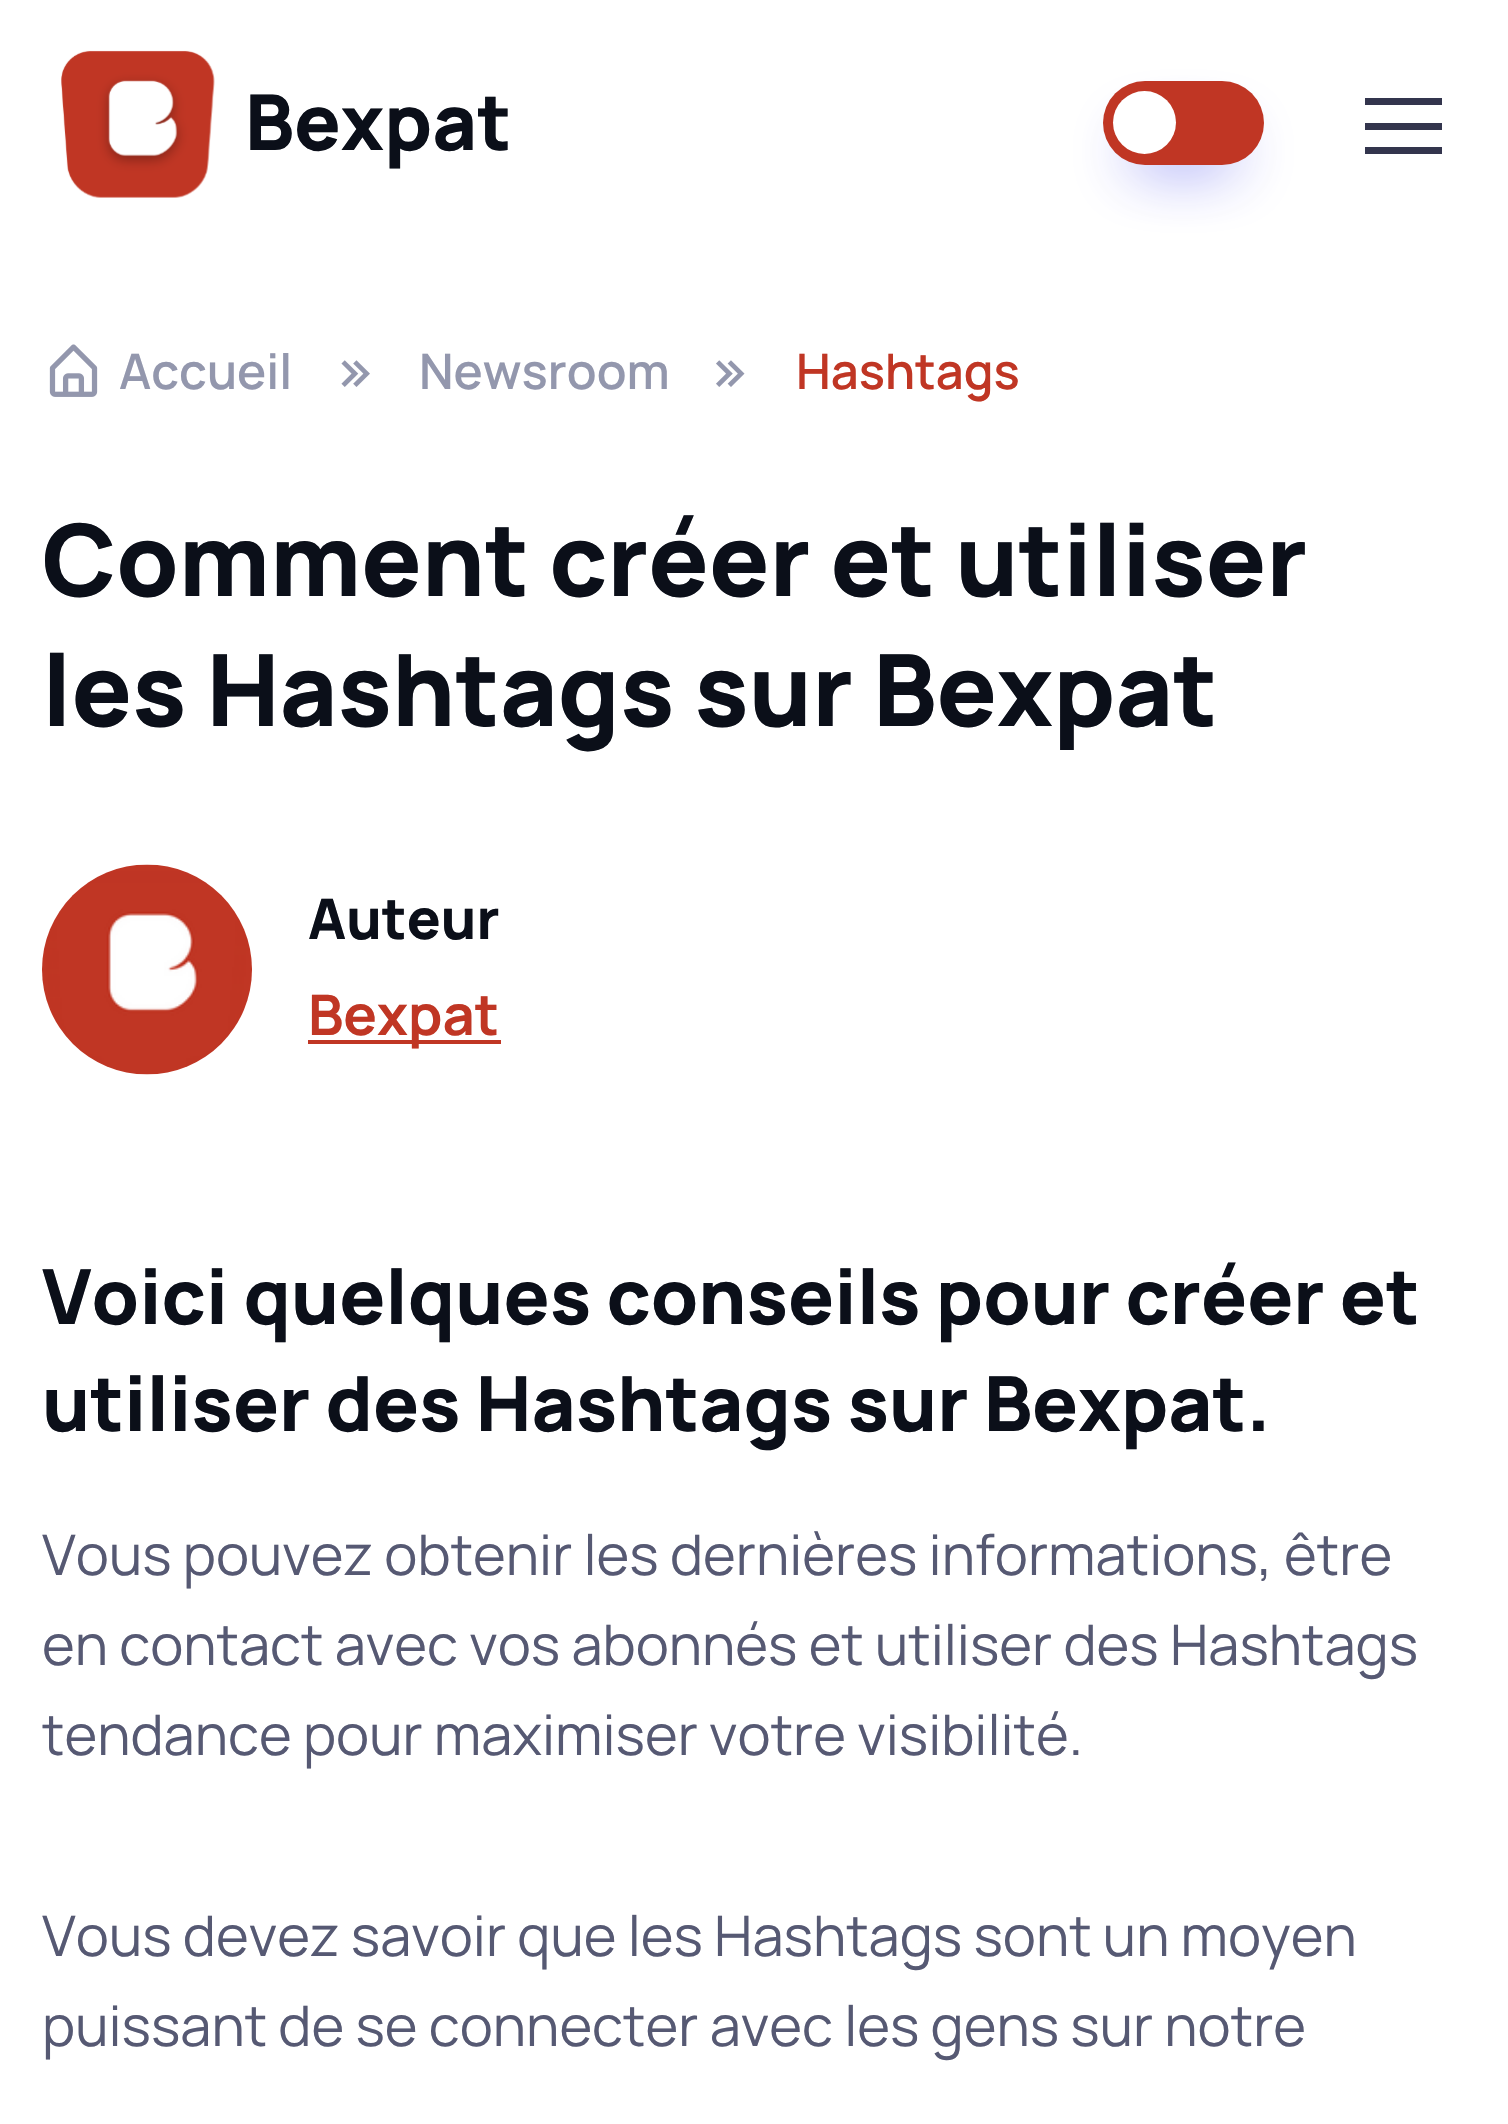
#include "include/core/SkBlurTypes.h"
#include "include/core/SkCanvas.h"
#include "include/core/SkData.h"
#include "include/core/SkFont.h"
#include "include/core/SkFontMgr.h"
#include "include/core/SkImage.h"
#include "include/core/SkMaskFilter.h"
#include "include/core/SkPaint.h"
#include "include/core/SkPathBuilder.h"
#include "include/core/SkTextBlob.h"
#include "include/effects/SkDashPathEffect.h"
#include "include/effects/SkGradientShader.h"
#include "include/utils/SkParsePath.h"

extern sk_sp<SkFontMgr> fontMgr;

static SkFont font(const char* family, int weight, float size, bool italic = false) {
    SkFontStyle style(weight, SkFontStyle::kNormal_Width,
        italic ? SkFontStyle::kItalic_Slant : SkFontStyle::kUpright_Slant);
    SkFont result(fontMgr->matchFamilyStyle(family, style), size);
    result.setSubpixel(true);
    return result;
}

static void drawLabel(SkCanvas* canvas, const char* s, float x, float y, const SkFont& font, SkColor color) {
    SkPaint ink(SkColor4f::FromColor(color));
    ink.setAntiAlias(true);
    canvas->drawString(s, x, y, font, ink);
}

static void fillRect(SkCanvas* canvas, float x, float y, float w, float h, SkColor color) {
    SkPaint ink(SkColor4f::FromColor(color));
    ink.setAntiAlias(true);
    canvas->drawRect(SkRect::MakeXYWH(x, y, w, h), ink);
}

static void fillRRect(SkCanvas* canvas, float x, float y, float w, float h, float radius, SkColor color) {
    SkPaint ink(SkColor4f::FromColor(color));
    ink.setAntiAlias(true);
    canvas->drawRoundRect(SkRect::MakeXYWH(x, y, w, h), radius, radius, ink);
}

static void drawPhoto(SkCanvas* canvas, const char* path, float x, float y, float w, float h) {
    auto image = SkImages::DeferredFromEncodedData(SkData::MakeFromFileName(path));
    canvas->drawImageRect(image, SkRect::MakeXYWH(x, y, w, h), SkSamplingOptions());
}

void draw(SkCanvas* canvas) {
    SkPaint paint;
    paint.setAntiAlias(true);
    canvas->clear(0xFFFFFFFF);
    drawPhoto(canvas, "assets/img1.png", 61, 50, 154, 148);
    SkFont font1 = font("Manrope", 800, 77);
    drawLabel(canvas, "Bexpat", 245, 150, font1, 0xFF0B0F19);
    paint.setColor(0xE66366F1);
    paint.setMaskFilter(SkMaskFilter::MakeBlur(kNormal_SkBlurStyle, 31.5f));
    canvas->drawRoundRect(SkRect::MakeXYWH(1131, 137, 105, 28), 14, 14, paint);
    paint.setMaskFilter(nullptr);
    fillRRect(canvas, 1103, 81, 161, 84, 42, 0xFFC03624);
    paint.setColor(0xFFFFFFFF);
    canvas->drawCircle(1144.5f, 122.5f, 31.5f, paint);
    fillRect(canvas, 1365, 123, 77, 7, 0xFF33354D);
    fillRect(canvas, 1365, 98, 77, 7, 0xFF33354D);
    fillRect(canvas, 1365, 147, 77, 7, 0xFF33354D);
    drawPhoto(canvas, "assets/img2.png", 49, 344, 49, 53);
    SkFont font2 = font("Manrope", 600, 49);
    drawLabel(canvas, "Accueil", 119, 389, font2, 0xFF9397AD);
    drawPhoto(canvas, "assets/img3.png", 341, 360, 29, 27);
    drawLabel(canvas, "Newsroom", 419, 389, font2, 0xFF9397AD);
    drawPhoto(canvas, "assets/img4.png", 716, 360, 29, 27);
    drawLabel(canvas, "Hashtags", 796, 389, font2, 0xFFC03624);
    SkFont font3 = font("Manrope", 800, 99.6f);
    drawLabel(canvas, "Comment créer et utiliser", 42, 596, font3, 0xFF0B0F19);
    drawLabel(canvas, "les Hashtags sur Bexpat", 42, 726, font3, 0xFF0B0F19);
    drawPhoto(canvas, "assets/img5.png", 42, 864, 210, 211);
    SkFont font4 = font("Manrope", 800, 56);
    drawLabel(canvas, "Auteur", 308, 939, font4, 0xFF0B0F19);
    fillRect(canvas, 308, 1040, 193, 4, 0xFFC03624);
    SkFont font5 = font("Manrope", 700, 56);
    drawLabel(canvas, "Bexpat", 308, 1035, font5, 0xFFC03624);
    SkFont font6 = font("Manrope", 800, 75.9f);
    drawLabel(canvas, "Voici quelques conseils pour créer et", 42, 1324, font6, 0xFF0B0F19);
    drawLabel(canvas, "utiliser des Hashtags sur Bexpat.", 42, 1431, font6, 0xFF0B0F19);
    SkFont font7 = font("Manrope", 400, 56);
    drawLabel(canvas, "Vous pouvez obtenir les dernières informations, être", 42, 1575, font7, 0xFF565973);
    drawLabel(canvas, "en contact avec vos abonnés et utiliser des Hashtags", 42, 1665, font7, 0xFF565973);
    drawLabel(canvas, "tendance pour maximiser votre visibilité.", 42, 1755, font7, 0xFF565973);
    drawLabel(canvas, "Vous devez savoir que les Hashtags sont un moyen", 42, 1956, font7, 0xFF565973);
    drawLabel(canvas, "puissant de se connecter avec les gens sur notre", 42, 2046, font7, 0xFF565973);
}
